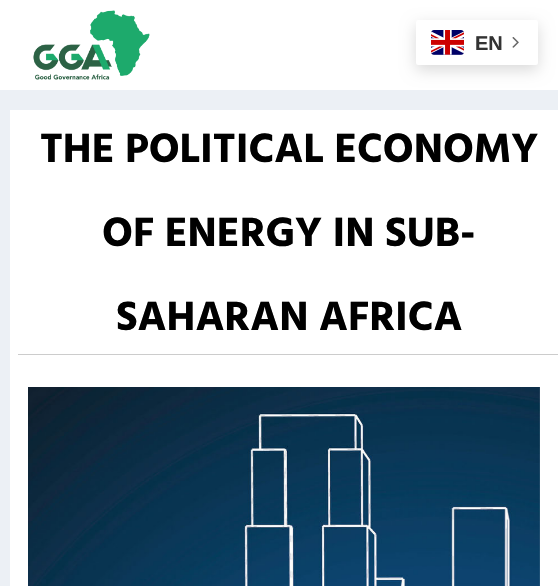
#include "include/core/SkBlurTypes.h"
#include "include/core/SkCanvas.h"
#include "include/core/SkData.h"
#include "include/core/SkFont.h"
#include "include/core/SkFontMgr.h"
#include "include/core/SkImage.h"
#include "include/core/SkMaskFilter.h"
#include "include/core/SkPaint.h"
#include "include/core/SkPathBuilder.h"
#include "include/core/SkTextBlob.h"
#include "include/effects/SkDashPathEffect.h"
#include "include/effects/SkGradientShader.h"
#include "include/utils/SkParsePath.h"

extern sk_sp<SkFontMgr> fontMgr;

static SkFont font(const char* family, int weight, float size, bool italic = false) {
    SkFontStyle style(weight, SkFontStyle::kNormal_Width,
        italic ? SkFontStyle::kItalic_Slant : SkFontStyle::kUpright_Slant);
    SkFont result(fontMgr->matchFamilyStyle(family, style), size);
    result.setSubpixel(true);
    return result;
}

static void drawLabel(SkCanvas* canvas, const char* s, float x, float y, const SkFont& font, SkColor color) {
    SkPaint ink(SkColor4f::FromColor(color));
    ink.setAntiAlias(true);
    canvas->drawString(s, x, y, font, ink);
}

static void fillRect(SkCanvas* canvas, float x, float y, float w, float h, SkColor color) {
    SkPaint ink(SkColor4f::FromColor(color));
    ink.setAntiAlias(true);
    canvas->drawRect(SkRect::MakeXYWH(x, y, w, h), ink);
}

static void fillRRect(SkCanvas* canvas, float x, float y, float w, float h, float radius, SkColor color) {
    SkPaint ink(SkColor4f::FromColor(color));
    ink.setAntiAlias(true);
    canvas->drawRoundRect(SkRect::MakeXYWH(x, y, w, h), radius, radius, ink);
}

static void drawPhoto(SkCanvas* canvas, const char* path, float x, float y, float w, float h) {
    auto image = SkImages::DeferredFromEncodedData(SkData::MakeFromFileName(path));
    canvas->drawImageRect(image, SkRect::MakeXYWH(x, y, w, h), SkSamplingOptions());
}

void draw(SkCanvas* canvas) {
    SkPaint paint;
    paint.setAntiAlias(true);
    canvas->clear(0xFFECF0F5);
    fillRect(canvas, 0, 0, 558, 90, 0xFFFFFFFF);
    paint.setColor(0x26000000);
    paint.setMaskFilter(SkMaskFilter::MakeBlur(kNormal_SkBlurStyle, 7.5f));
    canvas->drawRoundRect(SkRect::MakeXYWH(416, 25, 122, 45), 2, 2, paint);
    paint.setMaskFilter(nullptr);
    fillRRect(canvas, 416, 20, 122, 45, 2, 0xFFFFFFFF);
    drawPhoto(canvas, "assets/img1.png", 431, 30, 33, 25);
    SkFont font1 = font("Liberation Sans", 700, 20);
    drawLabel(canvas, "EN", 475, 50, font1, 0xFF333333);
    drawPhoto(canvas, "assets/img2.png", 512, 37, 7, 11);
    drawPhoto(canvas, "assets/img3.png", 33, 10, 117, 70);
    fillRect(canvas, 10, 110, 548, 476, 0xFFFFFFFF);
    SkFont font2 = font("Hind", 700, 42);
    drawLabel(canvas, "THE POLITICAL ECONOMY", 40, 162, font2, 0xFF000000);
    drawLabel(canvas, "OF ENERGY IN SUB-", 102, 246, font2, 0xFF000000);
    drawLabel(canvas, "SAHARAN AFRICA", 116, 330, font2, 0xFF000000);
    fillRect(canvas, 18, 354, 540, 1, 0xFFCCCCCC);
    drawPhoto(canvas, "assets/img4.png", 28, 387, 512, 199);
}
